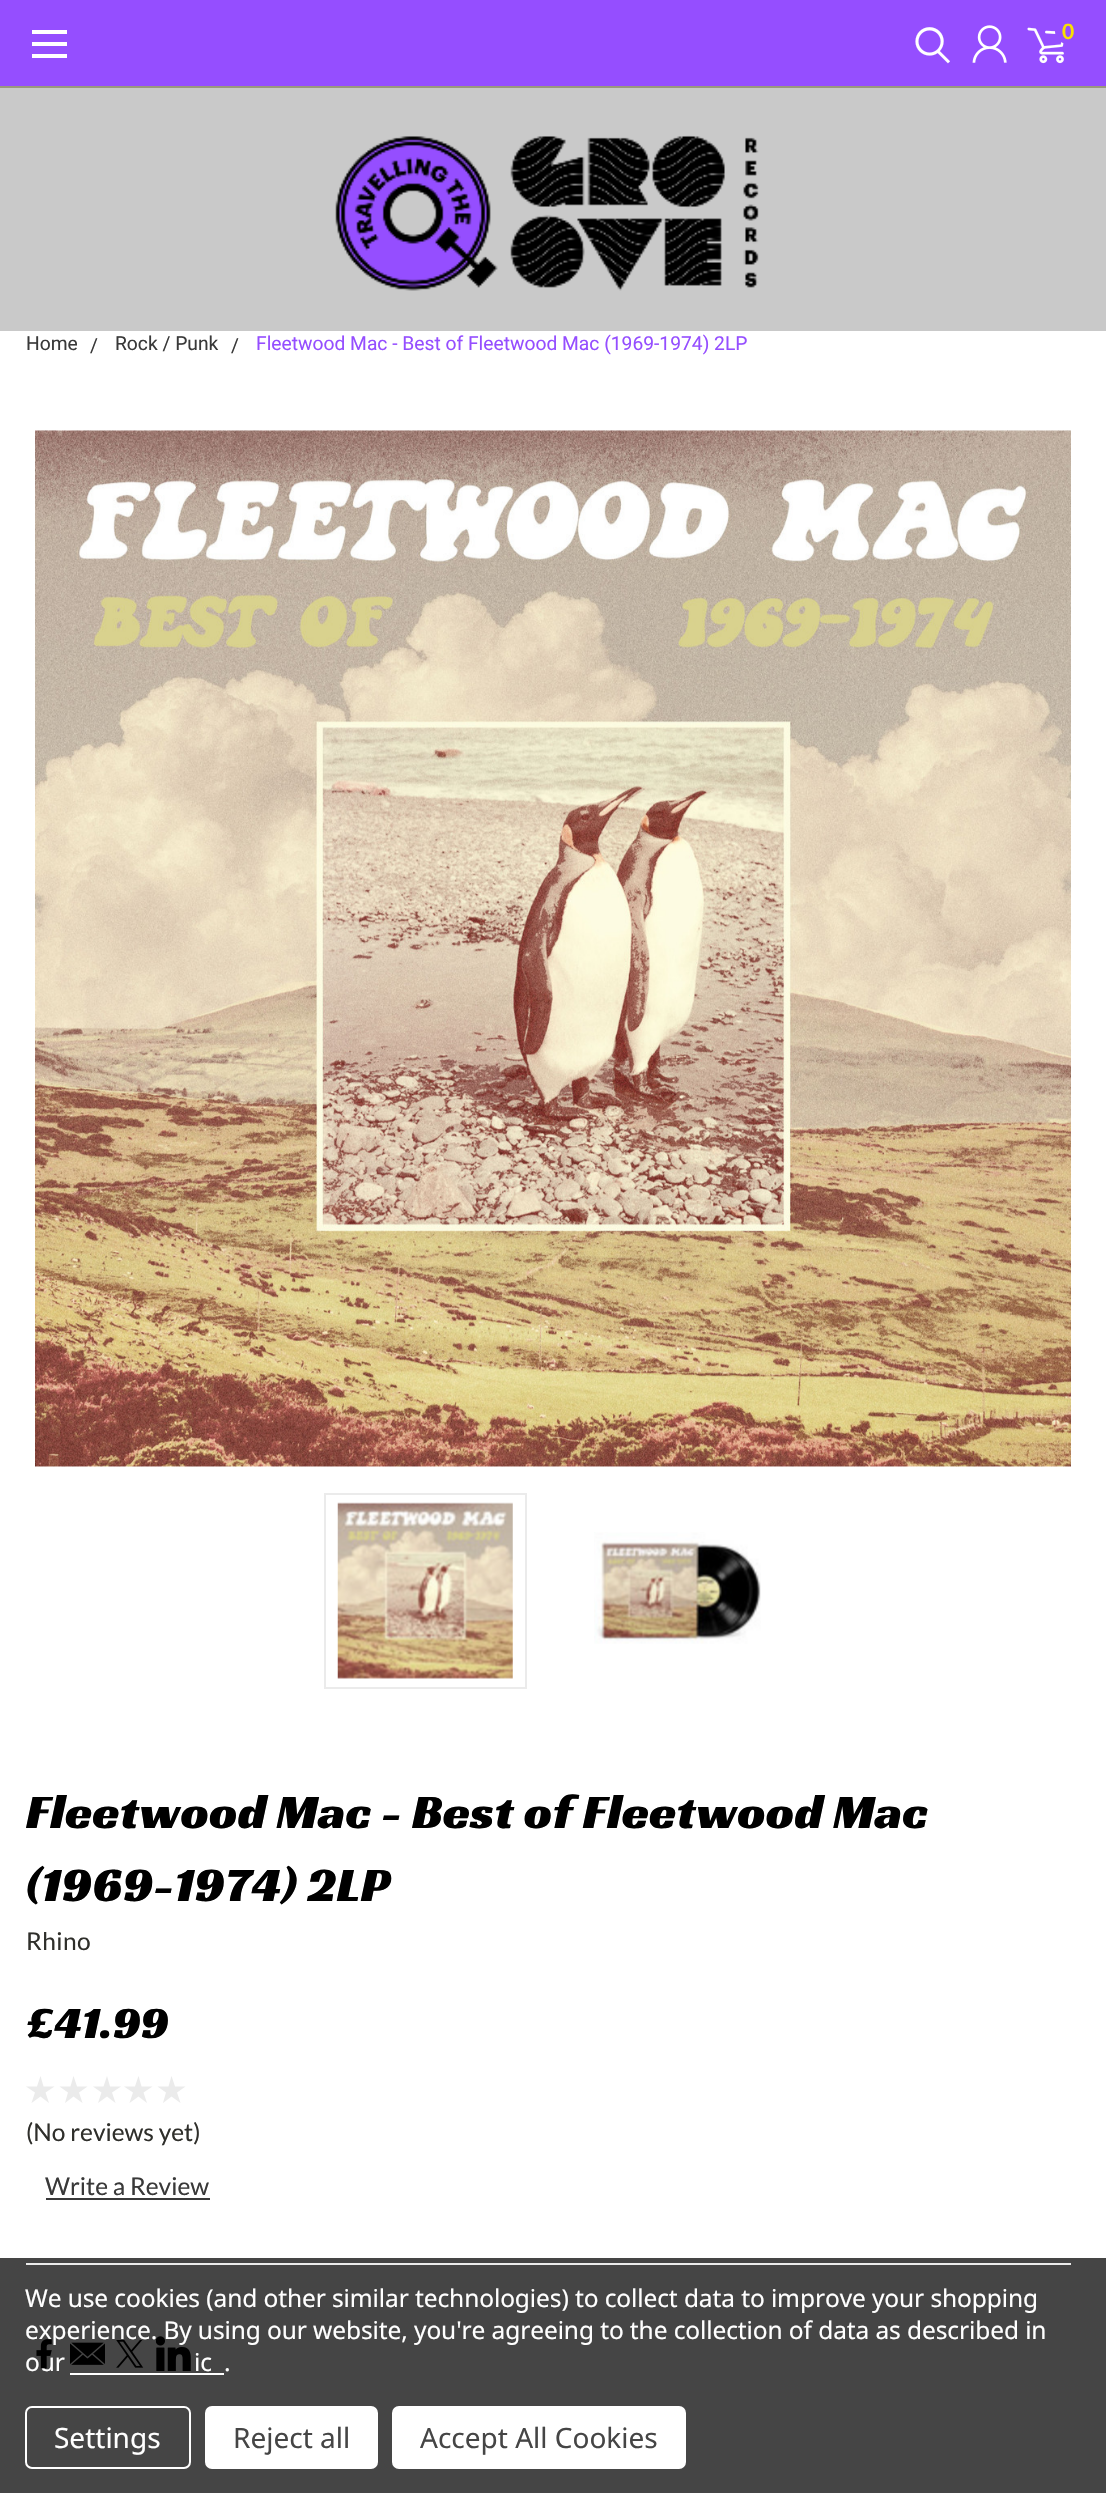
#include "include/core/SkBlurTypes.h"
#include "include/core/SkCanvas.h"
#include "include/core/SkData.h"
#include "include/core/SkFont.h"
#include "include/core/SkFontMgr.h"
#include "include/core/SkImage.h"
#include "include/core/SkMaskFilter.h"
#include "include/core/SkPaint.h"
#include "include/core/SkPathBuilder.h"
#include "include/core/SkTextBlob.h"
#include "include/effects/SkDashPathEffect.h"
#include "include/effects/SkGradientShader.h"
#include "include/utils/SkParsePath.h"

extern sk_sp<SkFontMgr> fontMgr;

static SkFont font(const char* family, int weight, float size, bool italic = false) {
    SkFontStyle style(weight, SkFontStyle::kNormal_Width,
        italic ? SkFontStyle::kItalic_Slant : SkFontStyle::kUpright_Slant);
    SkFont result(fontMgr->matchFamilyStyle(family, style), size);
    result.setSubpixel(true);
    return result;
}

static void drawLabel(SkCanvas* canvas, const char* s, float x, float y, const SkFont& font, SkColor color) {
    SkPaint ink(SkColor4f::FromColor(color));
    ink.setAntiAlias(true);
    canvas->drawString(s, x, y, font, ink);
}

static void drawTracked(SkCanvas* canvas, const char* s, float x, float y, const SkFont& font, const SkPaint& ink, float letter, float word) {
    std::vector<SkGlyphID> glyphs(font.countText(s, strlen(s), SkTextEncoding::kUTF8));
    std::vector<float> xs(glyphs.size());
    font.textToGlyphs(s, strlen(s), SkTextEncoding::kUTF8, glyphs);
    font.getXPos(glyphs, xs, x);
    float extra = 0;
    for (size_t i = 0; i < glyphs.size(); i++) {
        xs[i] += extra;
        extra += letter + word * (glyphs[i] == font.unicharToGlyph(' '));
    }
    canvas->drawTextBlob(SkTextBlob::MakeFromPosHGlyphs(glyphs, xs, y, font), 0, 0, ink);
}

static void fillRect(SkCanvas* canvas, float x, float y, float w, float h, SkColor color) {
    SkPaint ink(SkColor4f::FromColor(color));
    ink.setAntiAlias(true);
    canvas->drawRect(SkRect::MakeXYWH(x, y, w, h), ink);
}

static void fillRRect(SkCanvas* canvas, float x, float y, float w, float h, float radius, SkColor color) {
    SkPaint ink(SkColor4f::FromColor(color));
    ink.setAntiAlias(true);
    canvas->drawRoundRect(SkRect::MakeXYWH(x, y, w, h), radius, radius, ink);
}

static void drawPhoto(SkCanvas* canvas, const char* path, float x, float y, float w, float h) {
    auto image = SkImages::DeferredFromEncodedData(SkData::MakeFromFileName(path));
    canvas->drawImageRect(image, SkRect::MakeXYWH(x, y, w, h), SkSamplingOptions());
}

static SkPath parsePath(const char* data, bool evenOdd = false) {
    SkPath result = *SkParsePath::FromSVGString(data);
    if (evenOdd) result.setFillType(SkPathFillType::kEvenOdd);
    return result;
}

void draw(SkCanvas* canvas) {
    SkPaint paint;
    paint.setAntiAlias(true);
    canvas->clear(0xFFFFFFFF);
    fillRect(canvas, 0, 0, 1106, 86, 0xFF954EFF);
    fillRect(canvas, 0, 86, 1106, 2, 0xFF9A977E);
    fillRect(canvas, 32, 42, 35, 4, 0xFFFFFFFF);
    fillRect(canvas, 32, 30, 35, 4, 0xFFFFFFFF);
    fillRect(canvas, 32, 54, 35, 4, 0xFFFFFFFF);
    drawPhoto(canvas, "assets/img1.png", 915, 27, 35, 37);
    drawPhoto(canvas, "assets/img2.png", 972, 25, 35, 38);
    drawPhoto(canvas, "assets/img3.png", 1027, 27, 37, 37);
    fillRRect(canvas, 1055, 18, 27, 26, 13, 0xFF954EFF);
    SkFont font1 = font("Lato", 700, 21);
    drawLabel(canvas, "0", 1062, 39, font1, 0xFFF9DF01);
    fillRect(canvas, 0, 88, 1106, 243, 0xFFC9C9C9);
    drawPhoto(canvas, "assets/img4.png", 335, 135, 424, 156);
    SkFont font2 = font("Roboto", 400, 19.25f);
    drawLabel(canvas, "Home", 26, 350, font2, 0xFF393939);
    drawLabel(canvas, "/", 90, 352, font2, 0xFF393939);
    drawLabel(canvas, "Rock / Punk", 115, 350, font2, 0xFF393939);
    drawLabel(canvas, "/", 231, 352, font2, 0xFF393939);
    drawLabel(canvas, "Fleetwood Mac - Best of Fleetwood Mac (1969-1974) 2LP", 256, 350, font2, 0xFF954EFF);
    drawPhoto(canvas, "assets/img5.png", 35, 430, 1036, 1037);
    paint.setStroke(true);
    paint.setStrokeWidth(2);
    paint.setColor(0xFFEBEBEB);
    canvas->drawRect(SkRect::MakeXYWH(325, 1494, 201, 194), paint);
    drawPhoto(canvas, "assets/img6.png", 337, 1502, 176, 177);
    drawPhoto(canvas, "assets/img7.png", 594, 1532, 167, 112);
    SkFont font3 = font("Racing Sans One", 400, 49);
    paint.setStroke(false);
    paint.setColor(0xFF000000);
    drawTracked(canvas, "Fleetwood Mac - Best of Fleetwood Mac", 26, 1828, font3, paint, 0.45f, 0);
    drawTracked(canvas, "(1969-1974) 2LP", 26, 1901, font3, paint, 0.45f, 0);
    SkFont font4 = font("Lato", 400, 24.5f);
    paint.setColor(0xFF2F2F2B);
    drawTracked(canvas, "Rhino", 26, 1950, font4, paint, 0.45f, 0);
    SkFont font5 = font("Racing Sans One", 400, 45.5f);
    drawLabel(canvas, "£41.99", 26, 2038, font5, 0xFF000000);
    paint.setColor(0xFFEBEBEB);
    canvas->drawPath(parsePath("M40.5 2076L43.5 2086.5H54.5L45.5 2092.5L49 2103L40.5 2096.5L31.5 2103L35 2092.5L26 2086.5H37ZM73.5 2076L77 2086.5H87.5L79 2092.5L82.5 2103L73.5 2096.5L65 2103L68 2092.5L59.5 2086.5H70.5Z"), paint);
    canvas->drawPath(parsePath("M107 2076L110 2086.5H121L112 2092.5L115.5 2103L107 2096.5L98 2103L101.5 2092.5L93 2086.5H103.5ZM138.5 2076L141.5 2086.5H152.5L143.5 2092.5L147 2103L138.5 2096.5L129.5 2103L133 2092.5L124 2086.5H135Z"), paint);
    canvas->drawPath(parsePath("M171.5 2076L175 2086.5H185.5L177 2092.5L180.5 2103L171.5 2096.5L163 2103L166 2092.5L157.5 2086.5H168.5Z"), paint);
    drawLabel(canvas, "(No reviews yet)", 26, 2141, font4, 0xFF2F2F2B);
    drawLabel(canvas, "Write a Review", 45, 2195, font4, 0xFF393939);
    fillRect(canvas, 46, 2198, 164, 2, 0xFF393939);
    fillRect(canvas, 0, 2258, 1106, 235, 0xFF454545);
    fillRect(canvas, 26, 2263, 1045, 2, 0xFFEBEBEB);
    SkFont font6 = font("Noto Sans", 400, 24.5f);
    paint.setColor(0xFFFFFFFF);
    drawTracked(canvas, "experience. By using our website, you're agreeing to the collection of data as described in", 25, 2339, font6, paint, -0.1f, 0);
    drawTracked(canvas, "our", 25, 2371, font6, paint, -0.1f, 0);
    drawPhoto(canvas, "assets/img8.png", 36, 2339, 16, 30);
    drawPhoto(canvas, "assets/img9.png", 70, 2342, 35, 23);
    drawPhoto(canvas, "assets/img10.png", 116, 2340, 28, 28);
    drawPhoto(canvas, "assets/img11.png", 156, 2336, 35, 35);
    drawTracked(canvas, "We use cookies (and other similar technologies) to collect data to improve your shopping", 25, 2307, font6, paint, -0.1f, 0);
    drawTracked(canvas, "ic", 194, 2371, font6, paint, -0.1f, 0);
    drawTracked(canvas, ".", 224, 2371, font6, paint, -0.1f, 0);
    fillRect(canvas, 70, 2373, 154, 2, 0xFFFFFFFF);
    paint.setStroke(true);
    canvas->drawRoundRect(SkRect::MakeXYWH(26, 2407, 164, 61), 6, 6, paint);
    SkFont font7 = font("Noto Sans", 400, 28);
    drawLabel(canvas, "Settings", 54, 2448, font7, 0xFFFFFFFF);
    fillRRect(canvas, 205, 2406, 173, 63, 7, 0xFFFFFFFF);
    drawLabel(canvas, "Reject all", 233, 2448, font7, 0xFF454545);
    fillRRect(canvas, 392, 2406, 294, 63, 7, 0xFFFFFFFF);
    drawLabel(canvas, "Accept All Cookies", 420, 2448, font7, 0xFF454545);
}
